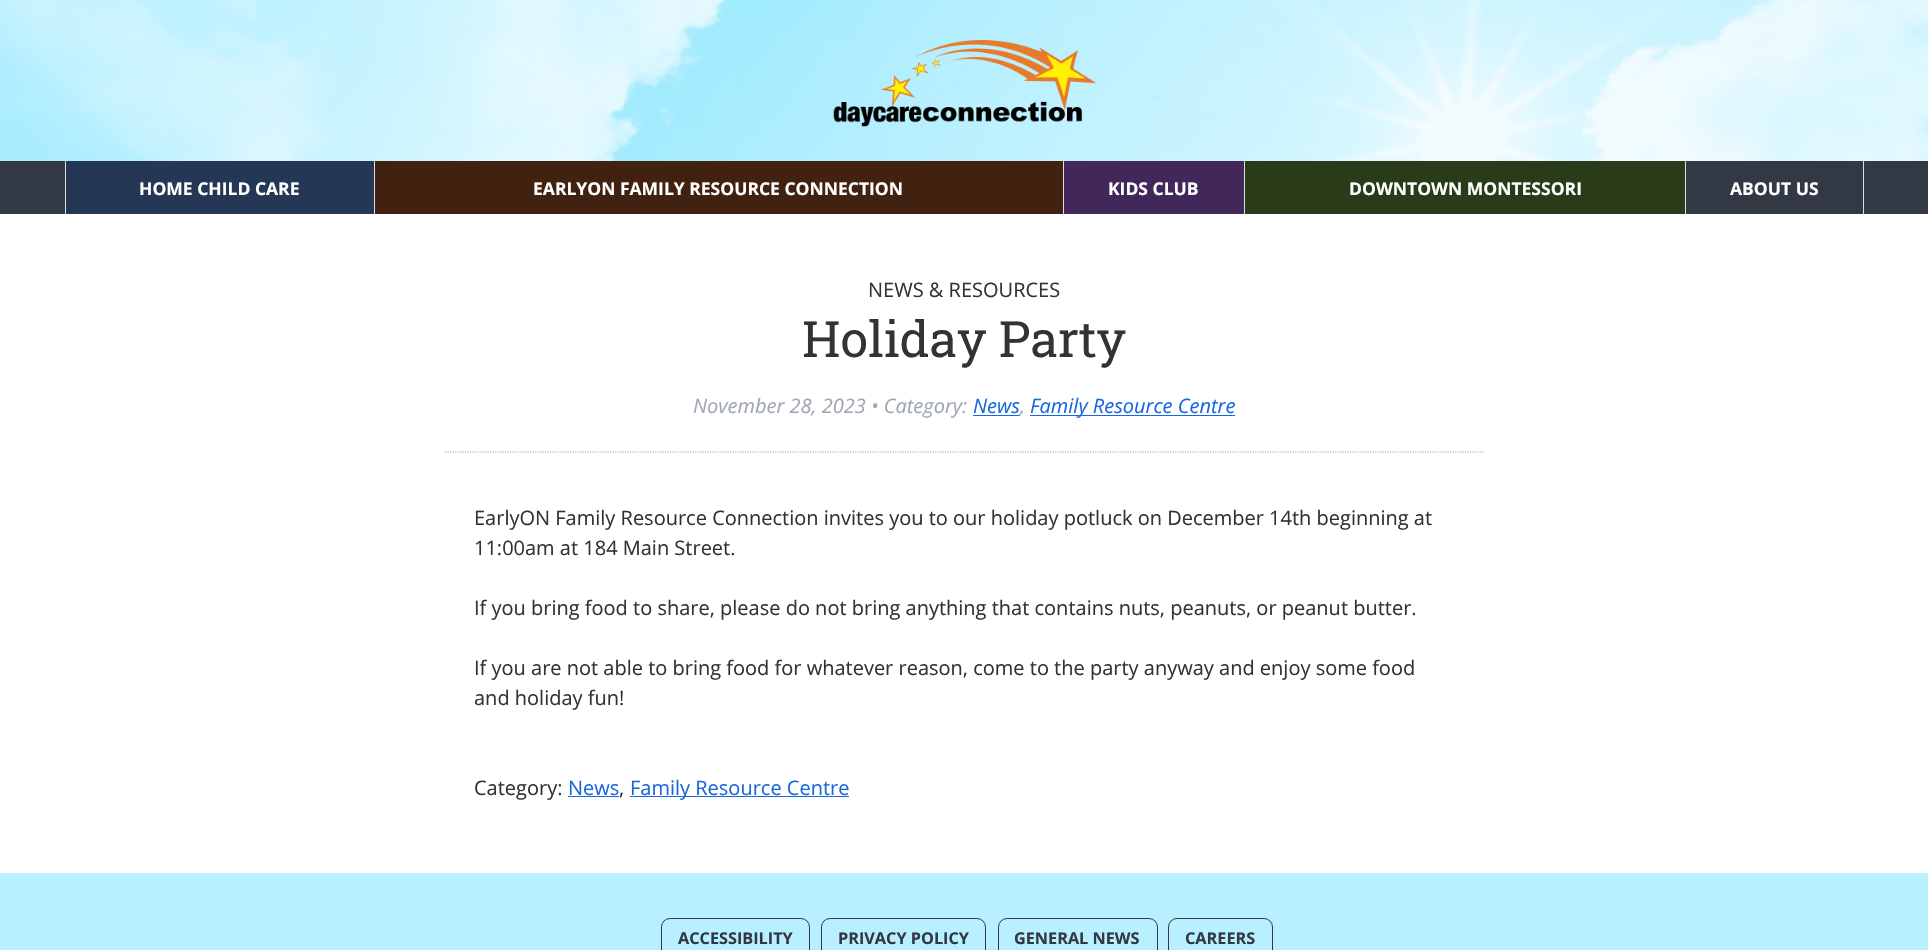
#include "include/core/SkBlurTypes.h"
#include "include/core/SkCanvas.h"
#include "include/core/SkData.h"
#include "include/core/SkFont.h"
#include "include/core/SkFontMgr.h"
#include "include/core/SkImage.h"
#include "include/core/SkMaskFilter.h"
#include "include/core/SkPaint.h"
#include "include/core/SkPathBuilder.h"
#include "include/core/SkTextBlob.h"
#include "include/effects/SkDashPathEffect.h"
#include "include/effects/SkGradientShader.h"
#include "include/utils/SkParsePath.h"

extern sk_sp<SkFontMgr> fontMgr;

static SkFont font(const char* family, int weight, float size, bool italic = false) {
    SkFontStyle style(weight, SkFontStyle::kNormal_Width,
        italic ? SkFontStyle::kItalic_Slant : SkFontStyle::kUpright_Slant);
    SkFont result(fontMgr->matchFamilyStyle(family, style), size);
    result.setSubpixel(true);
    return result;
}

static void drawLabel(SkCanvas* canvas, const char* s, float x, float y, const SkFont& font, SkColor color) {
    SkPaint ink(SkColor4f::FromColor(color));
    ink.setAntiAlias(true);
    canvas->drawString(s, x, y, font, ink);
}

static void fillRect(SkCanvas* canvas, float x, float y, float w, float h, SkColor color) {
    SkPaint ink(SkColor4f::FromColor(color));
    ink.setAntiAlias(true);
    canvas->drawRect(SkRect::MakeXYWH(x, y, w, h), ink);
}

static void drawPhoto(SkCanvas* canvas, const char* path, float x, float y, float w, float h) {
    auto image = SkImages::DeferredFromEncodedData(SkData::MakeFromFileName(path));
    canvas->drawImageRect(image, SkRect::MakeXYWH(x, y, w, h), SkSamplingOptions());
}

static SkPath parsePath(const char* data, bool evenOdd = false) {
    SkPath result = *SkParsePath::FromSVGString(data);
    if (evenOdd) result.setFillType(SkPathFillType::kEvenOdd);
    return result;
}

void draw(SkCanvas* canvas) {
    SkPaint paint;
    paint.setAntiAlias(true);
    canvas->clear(0xFFFFFFFF);
    drawPhoto(canvas, "assets/img1.png", 0, 0, 1928, 161);
    drawPhoto(canvas, "assets/img2.png", 833, 40, 264, 87);
    fillRect(canvas, 0, 161, 1928, 53, 0xFF323944);
    fillRect(canvas, 65, 161, 1, 53, 0xFFDDDDDD);
    fillRect(canvas, 66, 161, 308, 53, 0xFF243855);
    fillRect(canvas, 374, 161, 1, 53, 0xFFDDDDDD);
    SkFont font1 = font("Open Sans", 700, 17.5f);
    drawLabel(canvas, "HOME CHILD CARE", 139, 195, font1, 0xFFFFFFFF);
    fillRect(canvas, 375, 161, 688, 53, 0xFF412110);
    fillRect(canvas, 1063, 161, 1, 53, 0xFFDDDDDD);
    drawLabel(canvas, "EARLYON FAMILY RESOURCE CONNECTION", 533, 195, font1, 0xFFFFFFFF);
    fillRect(canvas, 1064, 161, 180, 53, 0xFF41275A);
    fillRect(canvas, 1244, 161, 1, 53, 0xFFDDDDDD);
    drawLabel(canvas, "KIDS CLUB", 1108, 195, font1, 0xFFFFFFFF);
    fillRect(canvas, 1245, 161, 440, 53, 0xFF2A3B19);
    fillRect(canvas, 1685, 161, 1, 53, 0xFFDDDDDD);
    drawLabel(canvas, "DOWNTOWN MONTESSORI", 1349, 195, font1, 0xFFFFFFFF);
    fillRect(canvas, 1863, 161, 1, 53, 0xFFDDDDDD);
    drawLabel(canvas, "ABOUT US", 1730, 195, font1, 0xFFFFFFFF);
    paint.setStroke(true);
    paint.setStrokeWidth(1.2f);
    paint.setColor(0xFF9FA6B4);
    paint.setPathEffect(SkDashPathEffect::Make({{1.25f, 1.25f}}, 0));
    canvas->drawPath(parsePath("M445 452H1485"), paint);
    paint.setPathEffect(nullptr);
    SkFont font2 = font("Open Sans", 400, 20);
    drawLabel(canvas, "NEWS & RESOURCES", 868, 297, font2, 0xFF333333);
    SkFont font3 = font("Roboto Slab", 400, 50);
    drawLabel(canvas, "Holiday Party", 802, 357, font3, 0xFF333333);
    SkFont font4 = font("Open Sans", 400, 20, true);
    drawLabel(canvas, "November 28, 2023 • Category:", 693, 413, font4, 0xFF9FA6B4);
    drawLabel(canvas, "News", 973, 413, font4, 0xFF1967E0);
    fillRect(canvas, 973, 415, 47, 1, 0xFF1967E0);
    drawLabel(canvas, ",", 1020, 413, font4, 0xFF9FA6B4);
    fillRect(canvas, 1030, 415, 205, 1, 0xFF1967E0);
    drawLabel(canvas, "Family Resource Centre", 1030, 413, font4, 0xFF1967E0);
    drawLabel(canvas, "EarlyON Family Resource Connection invites you to our holiday potluck on December 14th beginning at", 474, 525, font2, 0xFF333333);
    drawLabel(canvas, "11:00am at 184 Main Street.", 474, 555, font2, 0xFF333333);
    drawLabel(canvas, "If you bring food to share, please do not bring anything that contains nuts, peanuts, or peanut butter.", 474, 615, font2, 0xFF333333);
    drawLabel(canvas, "If you are not able to bring food for whatever reason, come to the party anyway and enjoy some food", 474, 675, font2, 0xFF333333);
    drawLabel(canvas, "and holiday fun!", 474, 705, font2, 0xFF333333);
    drawLabel(canvas, "Category:", 474, 795, font2, 0xFF333333);
    drawLabel(canvas, "News", 568, 795, font2, 0xFF1967E0);
    fillRect(canvas, 568, 796, 51, 1, 0xFF1967E0);
    drawLabel(canvas, ",", 619, 795, font2, 0xFF333333);
    fillRect(canvas, 630, 796, 219, 1, 0xFF1967E0);
    drawLabel(canvas, "Family Resource Centre", 630, 795, font2, 0xFF1967E0);
    fillRect(canvas, 0, 873, 1928, 77, 0xFFB8F0FF);
    paint.setStrokeWidth(1);
    paint.setColor(0xFF323944);
    canvas->drawRoundRect(SkRect::MakeXYWH(661.5f, 918.5f, 148, 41), 8.5f, 8.5f, paint);
    SkFont font5 = font("Open Sans", 700, 16.25f);
    drawLabel(canvas, "ACCESSIBILITY", 678, 944, font5, 0xFF323944);
    canvas->drawRoundRect(SkRect::MakeXYWH(821.5f, 918.5f, 164, 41), 8.5f, 8.5f, paint);
    drawLabel(canvas, "PRIVACY POLICY", 838, 944, font5, 0xFF323944);
    canvas->drawRoundRect(SkRect::MakeXYWH(998.5f, 918.5f, 159, 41), 8.5f, 8.5f, paint);
    drawLabel(canvas, "GENERAL NEWS", 1014, 944, font5, 0xFF323944);
    canvas->drawRoundRect(SkRect::MakeXYWH(1168.5f, 918.5f, 104, 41), 8.5f, 8.5f, paint);
    drawLabel(canvas, "CAREERS", 1185, 944, font5, 0xFF323944);
}
